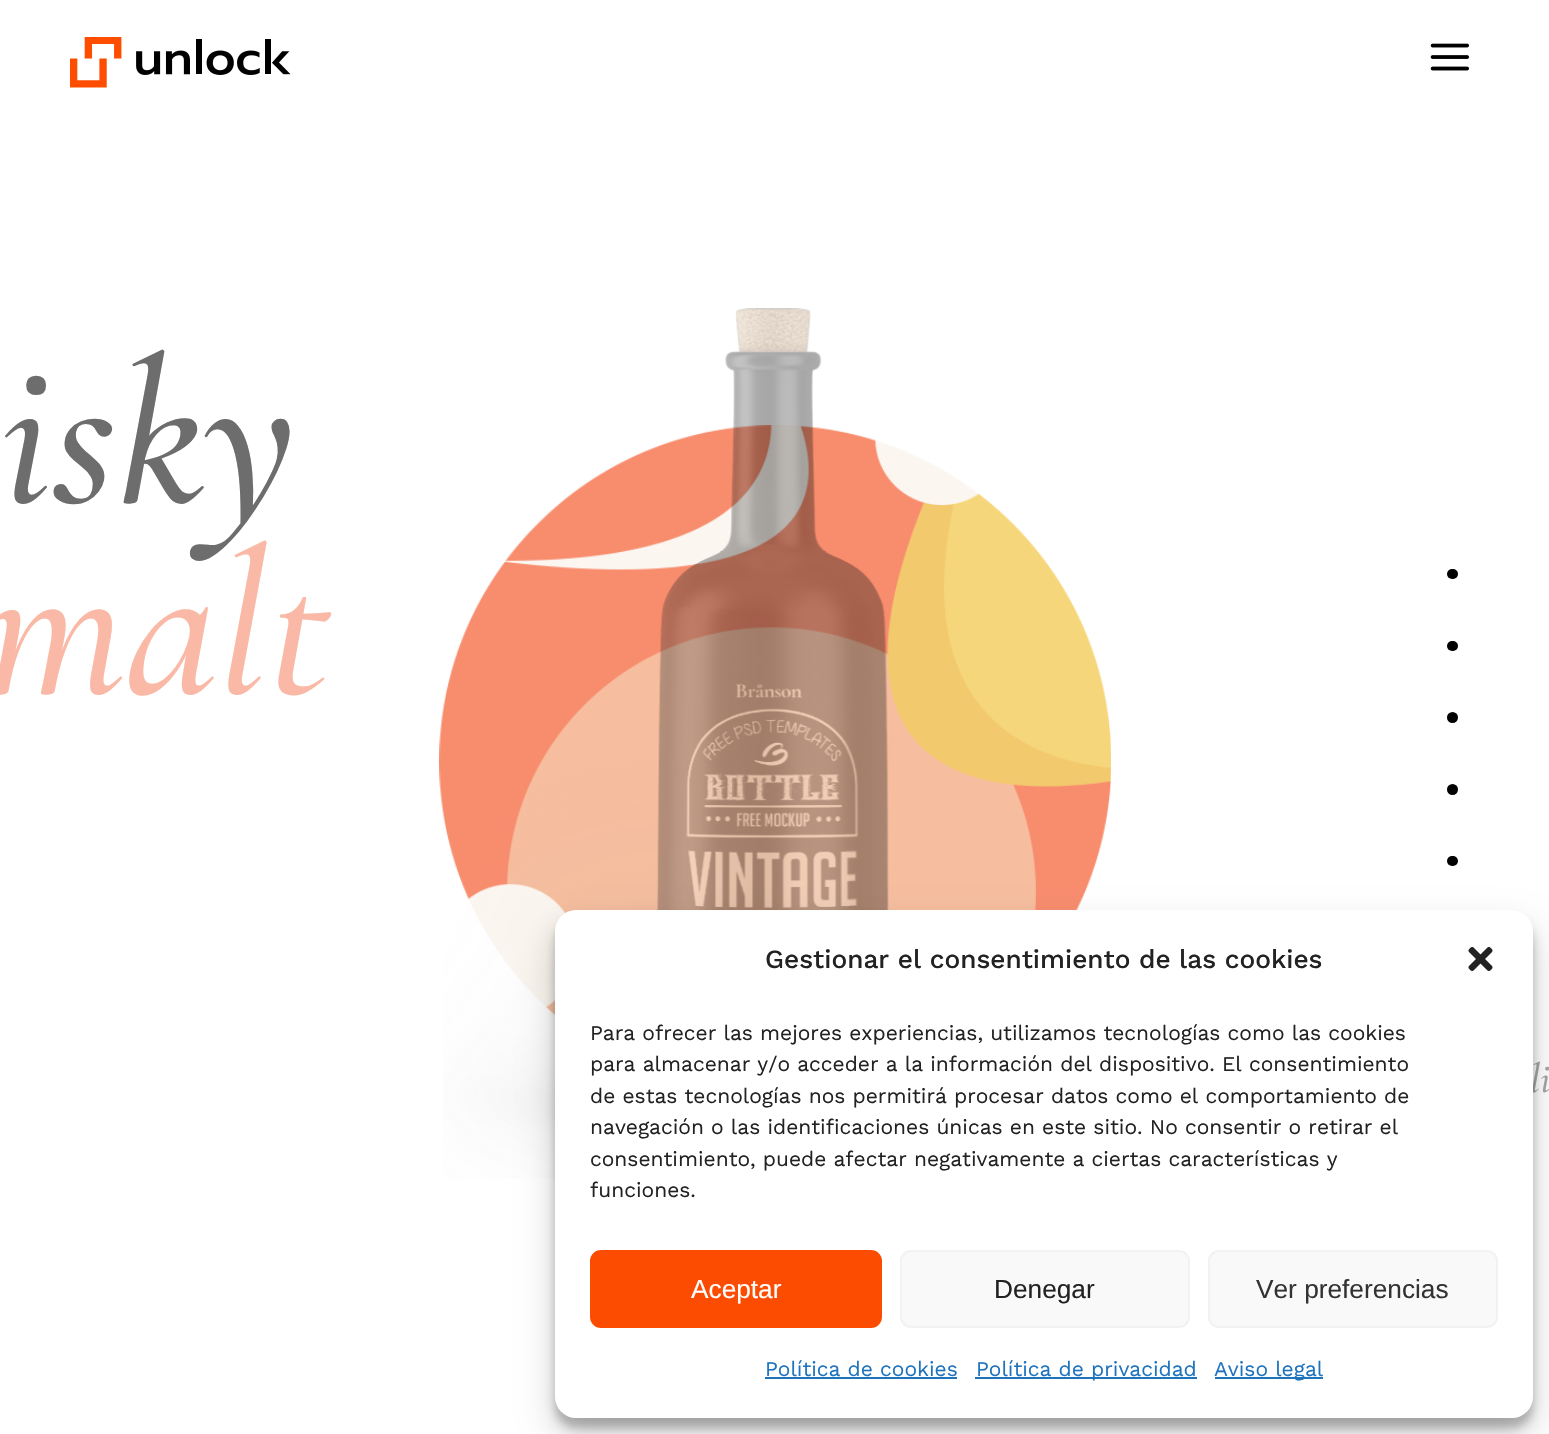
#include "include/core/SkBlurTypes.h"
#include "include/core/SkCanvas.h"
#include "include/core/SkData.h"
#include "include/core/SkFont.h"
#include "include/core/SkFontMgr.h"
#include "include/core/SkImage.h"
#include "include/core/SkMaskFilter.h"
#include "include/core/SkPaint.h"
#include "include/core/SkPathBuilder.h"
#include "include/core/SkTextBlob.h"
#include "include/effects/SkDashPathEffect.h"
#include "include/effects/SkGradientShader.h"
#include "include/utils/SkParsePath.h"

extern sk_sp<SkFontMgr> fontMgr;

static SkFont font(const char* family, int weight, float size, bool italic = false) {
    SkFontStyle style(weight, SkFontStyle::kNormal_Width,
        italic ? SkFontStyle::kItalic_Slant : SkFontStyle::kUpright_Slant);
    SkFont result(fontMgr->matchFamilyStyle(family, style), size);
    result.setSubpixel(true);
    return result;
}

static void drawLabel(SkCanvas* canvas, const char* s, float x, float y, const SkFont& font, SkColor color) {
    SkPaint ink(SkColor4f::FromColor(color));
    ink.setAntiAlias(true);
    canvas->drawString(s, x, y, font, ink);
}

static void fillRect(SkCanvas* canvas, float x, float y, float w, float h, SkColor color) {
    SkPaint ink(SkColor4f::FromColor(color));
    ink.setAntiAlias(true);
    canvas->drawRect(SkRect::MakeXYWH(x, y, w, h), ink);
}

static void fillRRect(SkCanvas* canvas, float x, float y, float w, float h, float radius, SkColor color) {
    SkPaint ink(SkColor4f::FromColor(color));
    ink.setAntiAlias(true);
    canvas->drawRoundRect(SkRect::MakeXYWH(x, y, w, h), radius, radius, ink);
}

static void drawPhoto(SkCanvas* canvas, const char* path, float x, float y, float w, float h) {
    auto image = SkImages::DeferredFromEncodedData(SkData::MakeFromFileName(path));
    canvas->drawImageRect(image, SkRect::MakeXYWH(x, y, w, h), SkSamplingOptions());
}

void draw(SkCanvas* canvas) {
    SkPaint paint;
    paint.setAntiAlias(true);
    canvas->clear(0xFFFFFFFF);
    drawPhoto(canvas, "assets/img1.png", 70, 37, 221, 51);
    drawPhoto(canvas, "assets/img2.png", 1430, 43, 39, 28);
    SkFont font1 = font("Cormorant", 300, 210, true);
    drawLabel(canvas, "isky", 0, 502, font1, 0xFF6D6D6D);
    drawPhoto(canvas, "assets/img4.png", 439, 425, 672, 591);
    drawPhoto(canvas, "assets/img3.png", 443, 308, 446, 871);
    drawLabel(canvas, "malt", -17, 693, font1, 0xFFFAB9A6);
    SkFont font2 = font("Cormorant", 300, 42, true);
    drawLabel(canvas, "li", 1530, 1092, font2, 0xFFA6A6A6);
    fillRRect(canvas, 1447, 569, 11, 10, 5, 0xFF000000);
    fillRRect(canvas, 1447, 641, 11, 10, 5, 0xFF000000);
    paint.setColor(0xFF000000);
    canvas->drawCircle(1452.5f, 717.5f, 5.5f, paint);
    canvas->drawCircle(1452.5f, 789.5f, 5.5f, paint);
    fillRRect(canvas, 1447, 856, 11, 10, 5, 0xFF000000);
    paint.setColor(0x3B000000);
    paint.setMaskFilter(SkMaskFilter::MakeBlur(kNormal_SkBlurStyle, 5));
    canvas->drawRoundRect(SkRect::MakeXYWH(555, 921, 978, 507), 21, 21, paint);
    paint.setMaskFilter(nullptr);
    paint.setColor(0x30000000);
    paint.setMaskFilter(SkMaskFilter::MakeBlur(kNormal_SkBlurStyle, 17.5f));
    canvas->drawRoundRect(SkRect::MakeXYWH(555, 928, 978, 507), 21, 21, paint);
    paint.setMaskFilter(nullptr);
    fillRRect(canvas, 555, 910, 978, 508, 21, 0xFFFFFFFF);
    SkFont font3 = font("Work Sans", 500, 26.25f);
    drawLabel(canvas, "Gestionar el consentimiento de las cookies", 765, 968, font3, 0xFF222222);
    drawPhoto(canvas, "assets/img5.png", 1468, 947, 25, 24);
    SkFont font4 = font("Work Sans", 400, 21);
    drawLabel(canvas, "Para ofrecer las mejores experiencias, utilizamos tecnologías como las cookies", 590, 1040, font4, 0xFF222222);
    drawLabel(canvas, "para almacenar y/o acceder a la información del dispositivo. El consentimiento", 590, 1071, font4, 0xFF222222);
    drawLabel(canvas, "de estas tecnologías nos permitirá procesar datos como el comportamiento de", 590, 1103, font4, 0xFF222222);
    drawLabel(canvas, "navegación o las identificaciones únicas en este sitio. No consentir o retirar el", 590, 1134, font4, 0xFF222222);
    drawLabel(canvas, "consentimiento, puede afectar negativamente a ciertas características y", 590, 1166, font4, 0xFF222222);
    drawLabel(canvas, "funciones.", 590, 1197, font4, 0xFF222222);
    paint.setColor(0xFFFC4C02);
    canvas->drawRoundRect(SkRect::MakeXYWH(591, 1251, 290, 76), 10, 10, paint);
    paint.setStroke(true);
    paint.setStrokeWidth(2);
    canvas->drawRoundRect(SkRect::MakeXYWH(591, 1251, 290, 76), 10, 10, paint);
    SkFont font5 = font("Liberation Sans", 400, 26.25f);
    drawLabel(canvas, "Aceptar", 691, 1298, font5, 0xFFFFFFFF);
    paint.setStroke(false);
    paint.setColor(0xFFF9F9F9);
    canvas->drawRoundRect(SkRect::MakeXYWH(901, 1251, 288, 76), 10, 10, paint);
    paint.setStroke(true);
    paint.setColor(0xFFF2F2F2);
    canvas->drawRoundRect(SkRect::MakeXYWH(901, 1251, 288, 76), 10, 10, paint);
    drawLabel(canvas, "Denegar", 994, 1298, font5, 0xFF222222);
    paint.setStroke(false);
    paint.setColor(0xFFF9F9F9);
    canvas->drawRoundRect(SkRect::MakeXYWH(1209, 1251, 288, 76), 10, 10, paint);
    paint.setStroke(true);
    paint.setColor(0xFFF2F2F2);
    canvas->drawRoundRect(SkRect::MakeXYWH(1209, 1251, 288, 76), 10, 10, paint);
    drawLabel(canvas, "Ver preferencias", 1256, 1298, font5, 0xFF333333);
    drawLabel(canvas, "Política de cookies", 765, 1376, font4, 0xFF1E73BE);
    fillRect(canvas, 765, 1377, 192, 2, 0xFF1E73BE);
    fillRect(canvas, 975, 1377, 222, 2, 0xFF1E73BE);
    drawLabel(canvas, "Política de privacidad", 976, 1376, font4, 0xFF1E73BE);
    fillRect(canvas, 1215, 1377, 108, 2, 0xFF1E73BE);
    drawLabel(canvas, "Aviso legal", 1214, 1376, font4, 0xFF1E73BE);
}
